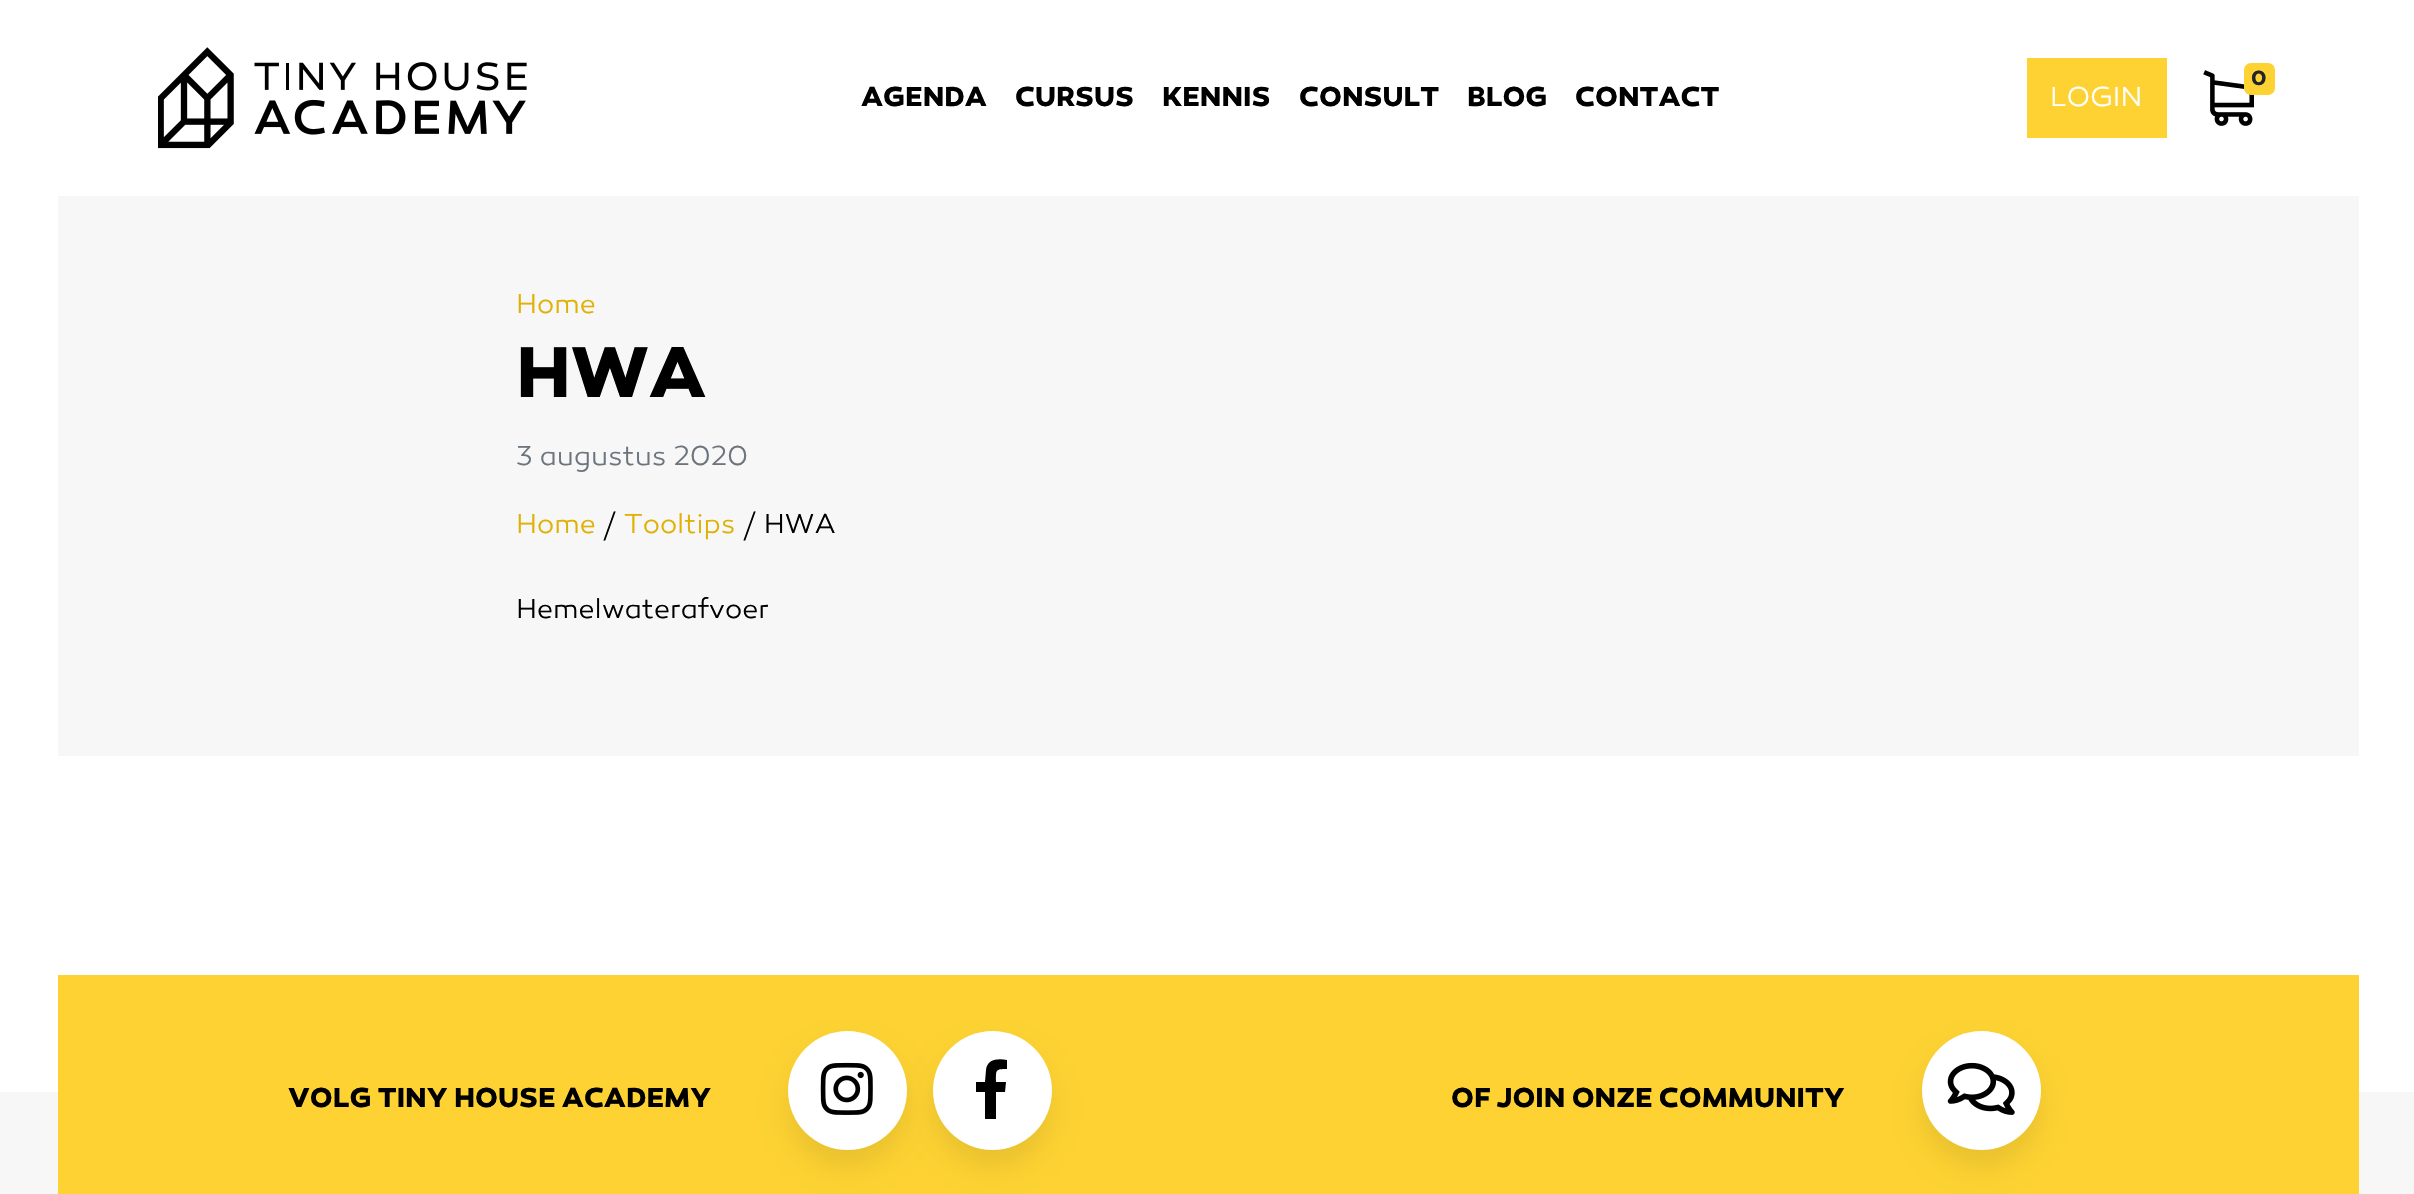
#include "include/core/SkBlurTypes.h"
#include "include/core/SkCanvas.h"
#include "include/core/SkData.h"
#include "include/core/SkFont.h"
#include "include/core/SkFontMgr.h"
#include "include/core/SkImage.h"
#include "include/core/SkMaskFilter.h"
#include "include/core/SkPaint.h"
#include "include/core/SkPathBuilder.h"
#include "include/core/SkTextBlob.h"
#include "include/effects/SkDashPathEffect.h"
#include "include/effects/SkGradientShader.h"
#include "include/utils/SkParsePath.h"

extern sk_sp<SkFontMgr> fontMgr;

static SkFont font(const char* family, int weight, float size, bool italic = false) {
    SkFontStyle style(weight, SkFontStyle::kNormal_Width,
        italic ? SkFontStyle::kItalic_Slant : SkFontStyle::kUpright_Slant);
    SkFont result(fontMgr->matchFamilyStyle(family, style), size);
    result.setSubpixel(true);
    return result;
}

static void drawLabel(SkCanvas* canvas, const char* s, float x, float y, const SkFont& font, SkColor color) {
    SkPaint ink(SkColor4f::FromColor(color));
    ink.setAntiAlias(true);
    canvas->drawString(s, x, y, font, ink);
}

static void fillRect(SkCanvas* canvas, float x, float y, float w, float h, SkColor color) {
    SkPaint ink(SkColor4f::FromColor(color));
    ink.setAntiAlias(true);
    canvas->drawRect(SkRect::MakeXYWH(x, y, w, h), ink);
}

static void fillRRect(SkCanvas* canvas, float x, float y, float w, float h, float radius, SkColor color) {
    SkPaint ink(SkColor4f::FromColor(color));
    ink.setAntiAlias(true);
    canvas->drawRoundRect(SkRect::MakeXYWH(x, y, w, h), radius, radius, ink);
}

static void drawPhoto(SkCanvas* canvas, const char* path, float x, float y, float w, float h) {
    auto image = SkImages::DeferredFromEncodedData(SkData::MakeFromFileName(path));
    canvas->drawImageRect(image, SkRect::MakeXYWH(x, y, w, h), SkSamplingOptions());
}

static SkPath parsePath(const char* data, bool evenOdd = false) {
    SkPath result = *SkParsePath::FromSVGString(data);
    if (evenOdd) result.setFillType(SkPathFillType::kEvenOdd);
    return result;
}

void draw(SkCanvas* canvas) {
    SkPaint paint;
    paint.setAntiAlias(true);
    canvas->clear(0xFFFFFFFF);
    drawPhoto(canvas, "assets/img1.png", 158, 47, 369, 102);
    SkFont font1 = font("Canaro", 700, 28);
    drawLabel(canvas, "AGENDA", 861, 106, font1, 0xFF000000);
    drawLabel(canvas, "CURSUS", 1015, 106, font1, 0xFF000000);
    drawLabel(canvas, "KENNIS", 1162, 106, font1, 0xFF000000);
    drawLabel(canvas, "CONSULT", 1299, 106, font1, 0xFF000000);
    drawLabel(canvas, "BLOG", 1467, 106, font1, 0xFF000000);
    drawLabel(canvas, "CONTACT", 1575, 106, font1, 0xFF000000);
    drawPhoto(canvas, "assets/img2.png", 2203, 70, 51, 56);
    fillRRect(canvas, 2244, 63, 31, 32, 7, 0xFFFDD232);
    SkFont font2 = font("Canaro", 700, 21);
    drawLabel(canvas, "0", 2251, 85, font2, 0xFF212529);
    fillRect(canvas, 2027, 58, 140, 80, 0xFFFDD232);
    SkFont font3 = font("Canaro", 300, 28);
    drawLabel(canvas, "LOGIN", 2050, 106, font3, 0xFFFFFFFF);
    fillRect(canvas, 58, 196, 2301, 560, 0xFFF7F7F7);
    drawLabel(canvas, "Home", 516, 313, font3, 0xFFE0B102);
    SkFont font4 = font("Canaro", 700, 73);
    drawLabel(canvas, "HWA", 516, 397, font4, 0xFF000000);
    drawLabel(canvas, "3 augustus 2020", 516, 465, font3, 0xFF6C757D);
    drawLabel(canvas, "Home", 516, 533, font3, 0xFFE0B102);
    drawLabel(canvas, "/", 603, 533, font3, 0xFF000000);
    drawLabel(canvas, "Tooltips", 624, 533, font3, 0xFFE0B102);
    drawLabel(canvas, "/ HWA", 743, 533, font3, 0xFF000000);
    drawLabel(canvas, "Hemelwaterafvoer", 516, 618, font3, 0xFF000000);
    fillRect(canvas, 0, 1092, 2414, 102, 0xFFF7F7F7);
    fillRect(canvas, 58, 975, 2301, 219, 0xFFFDD232);
    drawLabel(canvas, "VOLG TINY HOUSE ACADEMY", 288, 1107, font1, 0xFF000000);
    paint.setColor(0x14000000);
    paint.setMaskFilter(SkMaskFilter::MakeBlur(kNormal_SkBlurStyle, 13));
    canvas->drawRoundRect(SkRect::MakeXYWH(788, 1048, 119, 119), 59.5f, 59.5f, paint);
    paint.setMaskFilter(nullptr);
    paint.setColor(0xFFFFFFFF);
    canvas->drawCircle(847.5f, 1090.5f, 59.5f, paint);
    drawPhoto(canvas, "assets/img3.png", 820, 1062, 53, 53);
    paint.setColor(0x14000000);
    paint.setMaskFilter(SkMaskFilter::MakeBlur(kNormal_SkBlurStyle, 13));
    canvas->drawRoundRect(SkRect::MakeXYWH(933, 1048, 119, 119), 59.5f, 59.5f, paint);
    paint.setMaskFilter(nullptr);
    paint.setColor(0xFFFFFFFF);
    canvas->drawCircle(992.5f, 1090.5f, 59.5f, paint);
    paint.setColor(0xFF000000);
    canvas->drawPath(parsePath("M985 1119V1092H976V1082H985L986 1070C987 1059 998 1058 1007 1060V1069C995 1069 996 1070 996 1082H1006L1005 1092H996V1119Z"), paint);
    drawLabel(canvas, "OF JOIN ONZE COMMUNITY", 1451, 1107, font1, 0xFF000000);
    paint.setColor(0x14000000);
    paint.setMaskFilter(SkMaskFilter::MakeBlur(kNormal_SkBlurStyle, 13));
    canvas->drawRoundRect(SkRect::MakeXYWH(1922, 1048, 119, 119), 59.5f, 59.5f, paint);
    paint.setMaskFilter(nullptr);
    paint.setColor(0xFFFFFFFF);
    canvas->drawCircle(1981.5f, 1090.5f, 59.5f, paint);
    drawPhoto(canvas, "assets/img4.png", 1947, 1062, 68, 53);
}
